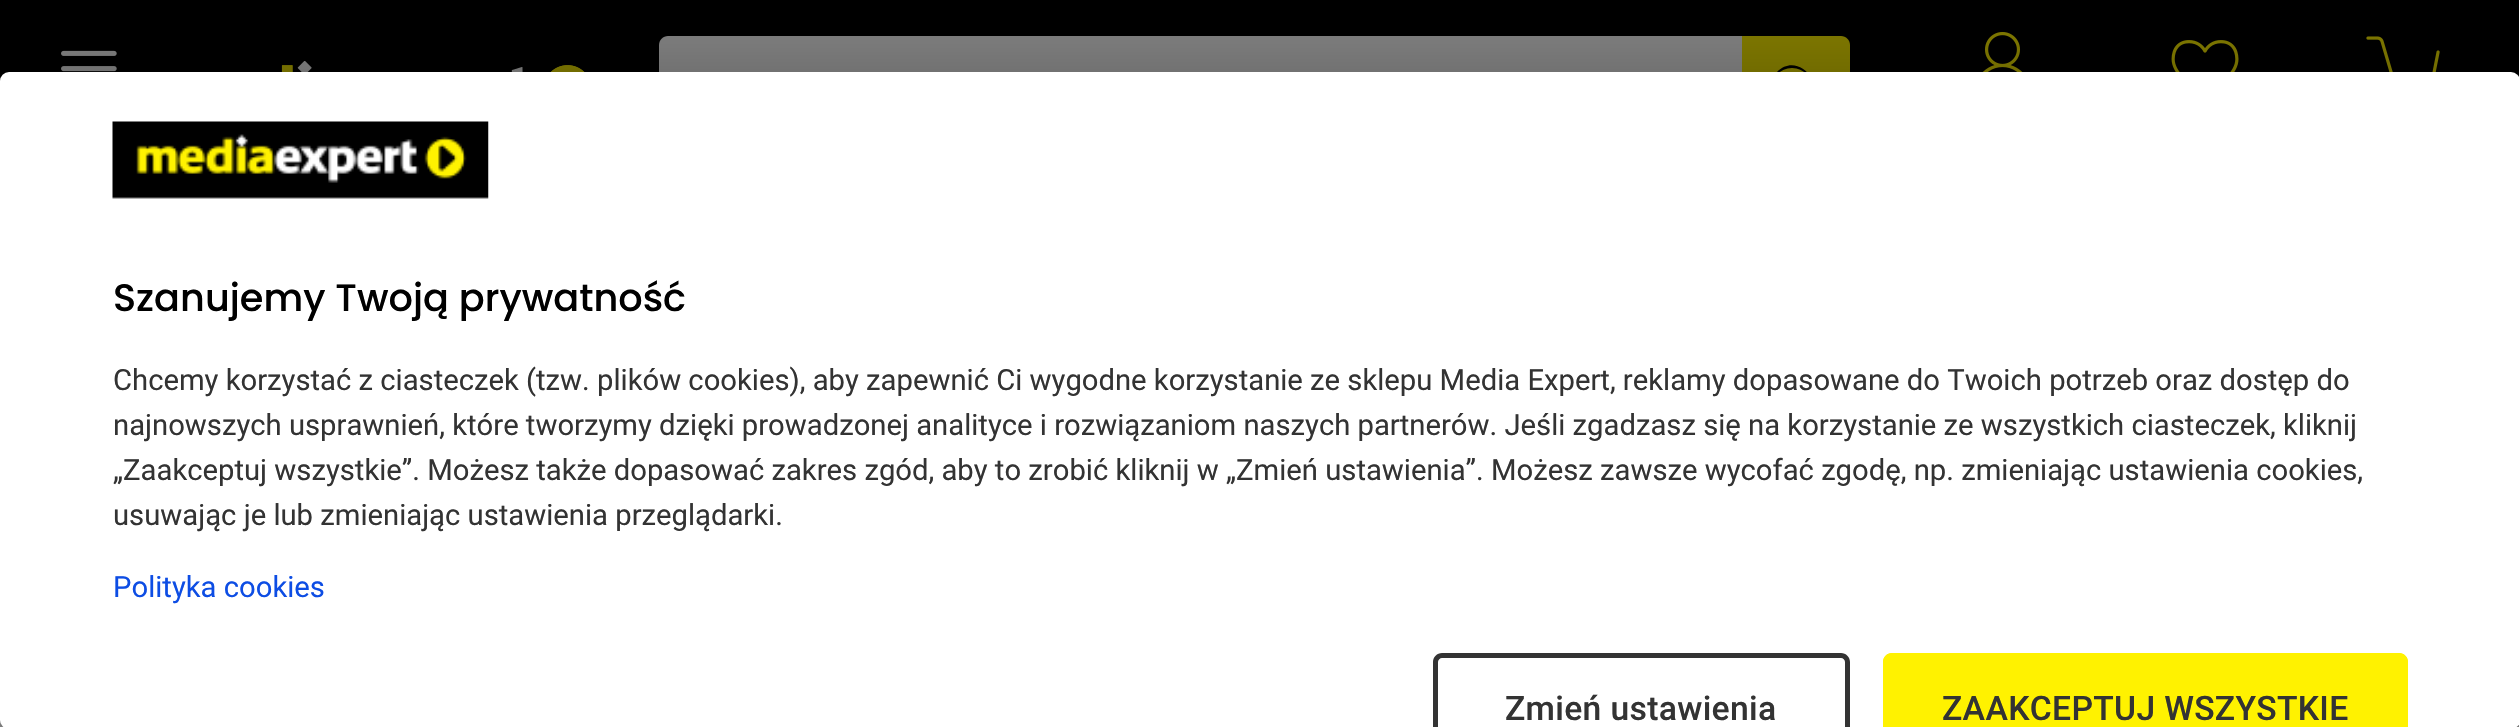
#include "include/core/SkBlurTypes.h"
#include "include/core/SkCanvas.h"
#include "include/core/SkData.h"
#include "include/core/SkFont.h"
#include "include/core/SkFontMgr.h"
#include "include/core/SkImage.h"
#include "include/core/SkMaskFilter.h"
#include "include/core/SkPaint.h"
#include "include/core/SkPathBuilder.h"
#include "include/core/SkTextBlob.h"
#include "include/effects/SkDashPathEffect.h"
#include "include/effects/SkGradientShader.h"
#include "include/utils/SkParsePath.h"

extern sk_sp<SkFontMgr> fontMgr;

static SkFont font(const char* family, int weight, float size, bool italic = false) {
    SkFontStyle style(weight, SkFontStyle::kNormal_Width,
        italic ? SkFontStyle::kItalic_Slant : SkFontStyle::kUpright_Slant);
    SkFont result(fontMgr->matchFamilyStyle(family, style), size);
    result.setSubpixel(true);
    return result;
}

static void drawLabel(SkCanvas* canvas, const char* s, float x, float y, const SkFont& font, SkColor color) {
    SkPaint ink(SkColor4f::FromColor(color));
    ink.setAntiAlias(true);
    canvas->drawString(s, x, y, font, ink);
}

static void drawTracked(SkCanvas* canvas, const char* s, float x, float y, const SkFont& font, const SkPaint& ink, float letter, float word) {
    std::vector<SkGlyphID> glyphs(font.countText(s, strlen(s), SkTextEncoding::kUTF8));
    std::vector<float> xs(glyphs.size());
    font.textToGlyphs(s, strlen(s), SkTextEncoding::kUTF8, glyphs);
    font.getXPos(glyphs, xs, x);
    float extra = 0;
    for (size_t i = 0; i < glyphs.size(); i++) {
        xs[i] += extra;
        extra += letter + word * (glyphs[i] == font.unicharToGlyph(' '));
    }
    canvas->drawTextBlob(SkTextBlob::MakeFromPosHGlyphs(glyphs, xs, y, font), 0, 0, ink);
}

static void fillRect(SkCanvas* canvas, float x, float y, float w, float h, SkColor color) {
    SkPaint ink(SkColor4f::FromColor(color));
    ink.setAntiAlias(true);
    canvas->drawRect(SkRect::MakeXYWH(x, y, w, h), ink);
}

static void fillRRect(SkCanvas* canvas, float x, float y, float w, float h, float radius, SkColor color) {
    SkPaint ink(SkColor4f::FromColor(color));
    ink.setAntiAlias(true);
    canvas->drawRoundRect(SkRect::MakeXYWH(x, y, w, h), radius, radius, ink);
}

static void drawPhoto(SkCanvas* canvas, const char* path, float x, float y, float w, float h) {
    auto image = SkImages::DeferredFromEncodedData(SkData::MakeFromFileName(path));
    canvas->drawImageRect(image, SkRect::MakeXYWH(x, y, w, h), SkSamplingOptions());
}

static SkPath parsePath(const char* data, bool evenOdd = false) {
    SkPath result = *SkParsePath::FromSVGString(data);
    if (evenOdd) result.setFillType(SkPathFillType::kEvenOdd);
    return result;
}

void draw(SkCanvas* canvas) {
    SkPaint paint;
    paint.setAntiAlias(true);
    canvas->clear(0xFF808080);
    fillRect(canvas, 0, 0, 2519, 81, 0xFF000000);
    drawPhoto(canvas, "assets/img1.png", 61, 50, 56, 22);
    drawPhoto(canvas, "assets/img2.png", 281, 61, 304, 11);
    paint.setColor(0xFF808080);
    canvas->drawPath(parsePath("M668 36H1742V144H668C663 144 659 140 659 135V45C659 40 663 36 668 36Z"), paint);
    paint.setColor(0xFF807900);
    canvas->drawPath(parsePath("M1742 36H1841C1846 36 1850 40 1850 45V135C1850 140 1846 144 1841 144H1742Z"), paint);
    paint.setColor(0xFF000000);
    canvas->drawPath(parsePath("M1771 87C1771 81 1773 76 1777 72C1796 52 1826 81 1808 101C1810 102 1821 110 1820 112C1819 115 1815 109 1814 109L1807 103C1793 115 1771 105 1771 87ZM1792 68C1767 68 1767 106 1792 106C1817 106 1817 68 1792 68Z"), paint);
    drawPhoto(canvas, "assets/img3.png", 1982, 32, 41, 40);
    drawPhoto(canvas, "assets/img4.png", 2171, 40, 68, 32);
    drawPhoto(canvas, "assets/img5.png", 2366, 36, 74, 36);
    paint.setColor(0x33000000);
    paint.setMaskFilter(SkMaskFilter::MakeBlur(kNormal_SkBlurStyle, 34));
    canvas->drawRoundRect(SkRect::MakeXYWH(23, 68, 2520, 657), 9, 9, paint);
    paint.setMaskFilter(nullptr);
    fillRRect(canvas, 0, 72, 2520, 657, 9, 0xFFFFFFFF);
    SkFont font1 = font("Poppins", 500, 38.25f);
    drawLabel(canvas, "Szanujemy Twoją prywatność", 113, 311, font1, 0xFF000000);
    SkFont font2 = font("roboto", 400, 29.25f);
    drawLabel(canvas, "Chcemy korzystać z ciasteczek (tzw. plików cookies), aby zapewnić Ci wygodne korzystanie ze sklepu Media Expert, reklamy dopasowane do Twoich potrzeb oraz dostęp do", 113, 390, font2, 0xFF333333);
    drawLabel(canvas, "najnowszych usprawnień, które tworzymy dzięki prowadzonej analityce i rozwiązaniom naszych partnerów. Jeśli zgadzasz się na korzystanie ze wszystkich ciasteczek, kliknij", 113, 435, font2, 0xFF333333);
    drawLabel(canvas, "„Zaakceptuj wszystkie”. Możesz także dopasować zakres zgód, aby to zrobić kliknij w „Zmień ustawienia”. Możesz zawsze wycofać zgodę, np. zmieniając ustawienia cookies,", 113, 480, font2, 0xFF333333);
    drawLabel(canvas, "usuwając je lub zmieniając ustawienia przeglądarki.", 113, 525, font2, 0xFF333333);
    drawLabel(canvas, "Polityka cookies", 113, 597, font2, 0xFF0D4DE4);
    drawPhoto(canvas, "assets/img6.png", 112, 121, 377, 78);
    paint.setColor(0xFF333333);
    canvas->drawPath(parsePath("M1442 653C1437 653 1433 657 1433 662V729H1438V662C1438 660 1440 658 1442 658H1841C1843 658 1845 660 1845 662V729H1850V662C1850 657 1846 653 1841 653Z"), paint);
    SkFont font3 = font("Roboto", 500, 33.75f);
    drawTracked(canvas, "Zmień ustawienia", 1505, 720, font3, paint, 0.3f, 0);
    paint.setColor(0xFFFFF200);
    canvas->drawPath(parsePath("M1892 653H2399C2404 653 2408 657 2408 662V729H1883V662C1883 657 1887 653 1892 653Z"), paint);
    canvas->drawPath(parsePath("M1892 653C1887 653 1883 657 1883 662V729H1888V662C1888 660 1890 658 1892 658H2399C2401 658 2403 660 2403 662V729H2408V662C2408 657 2404 653 2399 653Z"), paint);
    paint.setColor(0xFF333333);
    drawTracked(canvas, "ZAAKCEPTUJ WSZYSTKIE", 1942, 720, font3, paint, 0.3f, 0);
}
